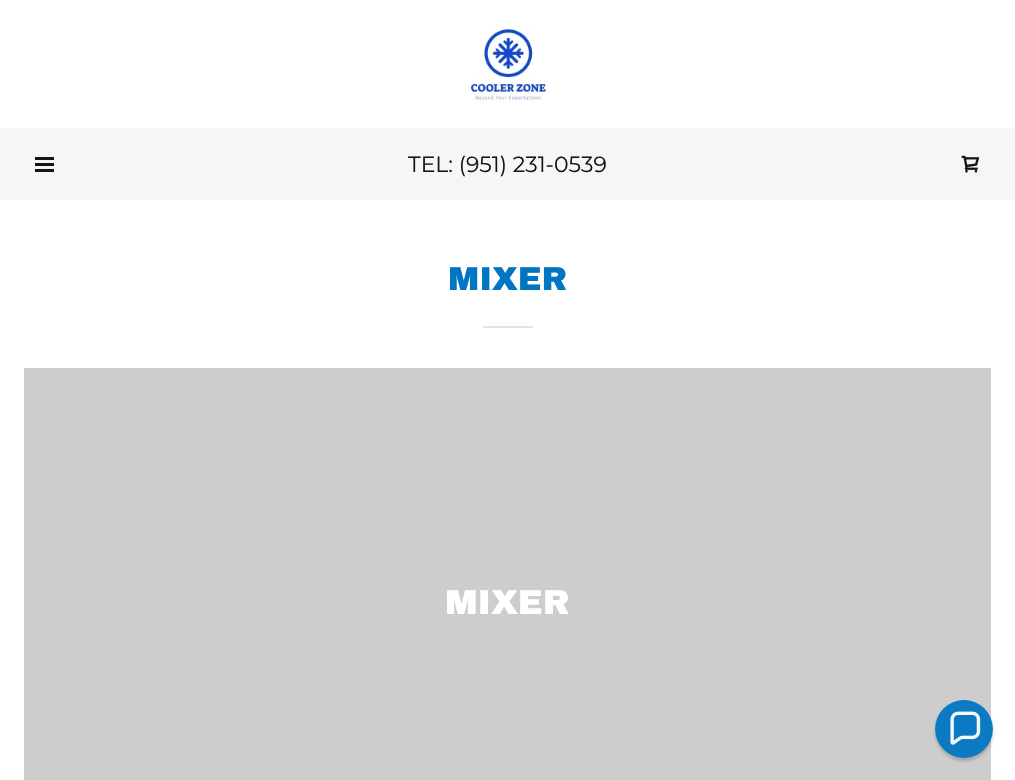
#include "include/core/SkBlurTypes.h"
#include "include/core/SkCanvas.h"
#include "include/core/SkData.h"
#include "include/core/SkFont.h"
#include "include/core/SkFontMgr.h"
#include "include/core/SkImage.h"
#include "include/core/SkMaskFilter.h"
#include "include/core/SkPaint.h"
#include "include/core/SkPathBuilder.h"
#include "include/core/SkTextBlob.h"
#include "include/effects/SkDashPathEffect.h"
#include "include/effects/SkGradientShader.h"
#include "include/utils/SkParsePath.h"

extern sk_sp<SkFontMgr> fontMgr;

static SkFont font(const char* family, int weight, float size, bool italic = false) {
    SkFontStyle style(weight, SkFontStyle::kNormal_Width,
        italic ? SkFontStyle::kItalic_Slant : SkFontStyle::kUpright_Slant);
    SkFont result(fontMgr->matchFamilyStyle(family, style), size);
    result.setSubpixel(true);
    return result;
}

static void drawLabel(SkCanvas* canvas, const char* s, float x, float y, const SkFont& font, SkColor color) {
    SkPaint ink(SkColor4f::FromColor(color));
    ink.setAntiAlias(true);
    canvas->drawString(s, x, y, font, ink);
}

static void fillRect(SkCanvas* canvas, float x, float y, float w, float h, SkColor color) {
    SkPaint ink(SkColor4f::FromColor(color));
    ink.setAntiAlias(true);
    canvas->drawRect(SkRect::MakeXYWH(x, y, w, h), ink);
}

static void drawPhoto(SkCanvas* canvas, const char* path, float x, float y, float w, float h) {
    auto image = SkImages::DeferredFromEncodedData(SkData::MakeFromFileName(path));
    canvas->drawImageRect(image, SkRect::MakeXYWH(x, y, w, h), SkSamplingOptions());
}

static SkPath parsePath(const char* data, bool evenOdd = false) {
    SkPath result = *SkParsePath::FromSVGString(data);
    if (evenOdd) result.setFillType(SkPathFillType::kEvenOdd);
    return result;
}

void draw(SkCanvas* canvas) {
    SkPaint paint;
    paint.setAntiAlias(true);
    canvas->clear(0xFFFFFFFF);
    drawPhoto(canvas, "assets/img1.png", 468, 27, 80, 77);
    fillRect(canvas, 0, 128, 1015, 72, 0xFFF6F6F6);
    fillRect(canvas, 35, 157, 19, 3, 0xFF151515);
    fillRect(canvas, 35, 163, 19, 3, 0xFF151515);
    fillRect(canvas, 35, 169, 19, 3, 0xFF151515);
    SkFont font1 = font("Montserrat", 400, 22);
    drawLabel(canvas, "TEL: (951) 231-0539", 408, 172, font1, 0xFF151515);
    drawPhoto(canvas, "assets/img2.png", 961, 155, 19, 18);
    SkFont font2 = font("Archivo Black", 900, 33);
    drawLabel(canvas, "MIXER", 448, 290, font2, 0xFF0075C1);
    fillRect(canvas, 483, 326, 50, 2, 0xFFE2E2E2);
    fillRect(canvas, 24, 368, 967, 412, 0xFFCDCDCD);
    SkFont font3 = font("Archivo Black", 900, 34.5f);
    drawLabel(canvas, "MIXER", 445, 614, font3, 0xFFFFFFFF);
    canvas->save();
    canvas->clipPath(parsePath("M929 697H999V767H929ZM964 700C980 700 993 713 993 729C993 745 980 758 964 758C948 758 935 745 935 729C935 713 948 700 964 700Z", true), true);
    paint.setColor(0x30000000);
    paint.setMaskFilter(SkMaskFilter::MakeBlur(kNormal_SkBlurStyle, 1.5f));
    canvas->drawRoundRect(SkRect::MakeXYWH(935, 703, 58, 58), 29, 29, paint);
    paint.setMaskFilter(nullptr);
    canvas->restore();
    paint.setColor(0xF20075C1);
    canvas->drawCircle(964, 729, 29, paint);
    drawPhoto(canvas, "assets/img3.png", 950, 711, 31, 34);
}
